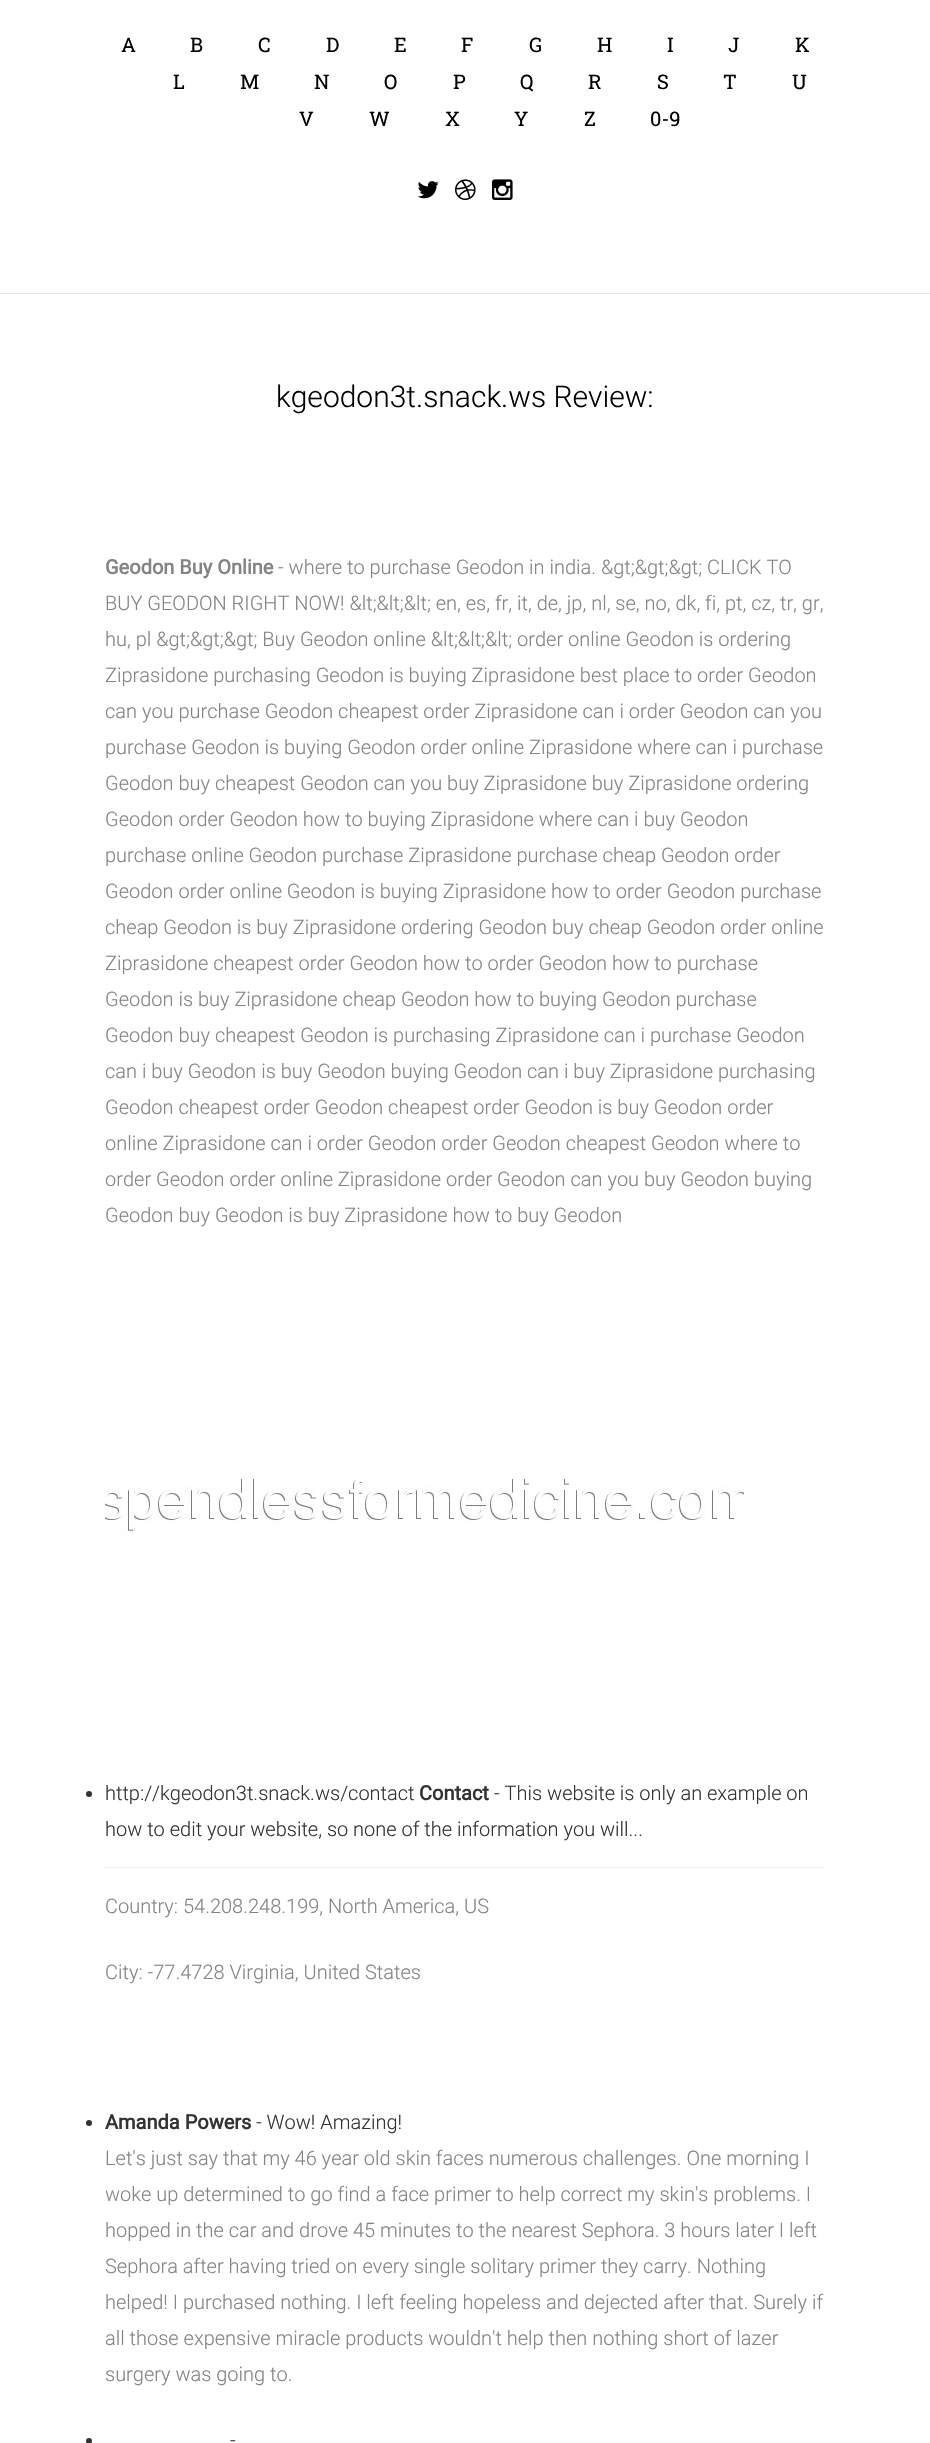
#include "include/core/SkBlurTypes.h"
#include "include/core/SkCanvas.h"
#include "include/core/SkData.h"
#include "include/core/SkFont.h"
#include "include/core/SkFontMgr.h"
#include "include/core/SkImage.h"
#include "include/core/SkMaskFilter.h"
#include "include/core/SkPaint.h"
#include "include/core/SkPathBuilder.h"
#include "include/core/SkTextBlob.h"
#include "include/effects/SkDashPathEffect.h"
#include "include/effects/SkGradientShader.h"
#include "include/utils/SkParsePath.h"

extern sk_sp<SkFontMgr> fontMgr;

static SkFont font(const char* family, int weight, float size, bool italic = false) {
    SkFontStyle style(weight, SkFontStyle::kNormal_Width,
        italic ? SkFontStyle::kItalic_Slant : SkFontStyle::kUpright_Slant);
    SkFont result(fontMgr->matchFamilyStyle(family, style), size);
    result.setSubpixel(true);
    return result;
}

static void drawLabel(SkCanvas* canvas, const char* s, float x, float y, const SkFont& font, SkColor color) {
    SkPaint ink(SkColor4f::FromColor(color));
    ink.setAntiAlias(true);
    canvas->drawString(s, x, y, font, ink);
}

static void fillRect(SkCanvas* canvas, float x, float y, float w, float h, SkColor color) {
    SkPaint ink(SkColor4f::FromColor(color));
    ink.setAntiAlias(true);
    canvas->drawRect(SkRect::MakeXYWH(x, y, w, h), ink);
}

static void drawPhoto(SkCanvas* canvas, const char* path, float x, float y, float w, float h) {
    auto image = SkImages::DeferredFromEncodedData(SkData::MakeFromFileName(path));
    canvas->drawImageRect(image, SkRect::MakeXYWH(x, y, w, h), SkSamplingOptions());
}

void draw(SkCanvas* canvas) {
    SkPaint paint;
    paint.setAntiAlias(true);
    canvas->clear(0xFFFFFFFF);
    fillRect(canvas, 0, 293, 930, 1, 0xFFE6E6E6);
    SkFont font1 = font("Roboto Slab", 400, 20);
    drawLabel(canvas, "A", 121, 52, font1, 0xFF000000);
    drawLabel(canvas, "B", 190, 52, font1, 0xFF000000);
    drawLabel(canvas, "C", 258, 52, font1, 0xFF000000);
    drawLabel(canvas, "D", 326, 52, font1, 0xFF000000);
    drawLabel(canvas, "E", 394, 52, font1, 0xFF000000);
    drawLabel(canvas, "F", 461, 52, font1, 0xFF000000);
    drawLabel(canvas, "G", 529, 52, font1, 0xFF000000);
    drawLabel(canvas, "H", 597, 52, font1, 0xFF000000);
    drawLabel(canvas, "I", 667, 52, font1, 0xFF000000);
    drawLabel(canvas, "J", 728, 52, font1, 0xFF000000);
    drawLabel(canvas, "K", 795, 52, font1, 0xFF000000);
    drawLabel(canvas, "L", 173, 89, font1, 0xFF000000);
    drawLabel(canvas, "M", 240, 89, font1, 0xFF000000);
    drawLabel(canvas, "N", 314, 89, font1, 0xFF000000);
    drawLabel(canvas, "O", 384, 89, font1, 0xFF000000);
    drawLabel(canvas, "P", 453, 89, font1, 0xFF000000);
    drawLabel(canvas, "Q", 520, 89, font1, 0xFF000000);
    drawLabel(canvas, "R", 588, 89, font1, 0xFF000000);
    drawLabel(canvas, "S", 657, 89, font1, 0xFF000000);
    drawLabel(canvas, "T", 723, 89, font1, 0xFF000000);
    drawLabel(canvas, "U", 792, 89, font1, 0xFF000000);
    drawLabel(canvas, "V", 299, 126, font1, 0xFF000000);
    drawLabel(canvas, "W", 369, 126, font1, 0xFF000000);
    drawLabel(canvas, "X", 445, 126, font1, 0xFF000000);
    drawLabel(canvas, "Y", 514, 126, font1, 0xFF000000);
    drawLabel(canvas, "Z", 584, 126, font1, 0xFF000000);
    drawLabel(canvas, "0-9", 650, 126, font1, 0xFF000000);
    drawPhoto(canvas, "assets/img1.png", 417, 181, 22, 18);
    drawPhoto(canvas, "assets/img2.png", 455, 179, 21, 21);
    drawPhoto(canvas, "assets/img3.png", 492, 179, 21, 21);
    SkFont font2 = font("Roboto", 300, 30);
    drawLabel(canvas, "kgeodon3t.snack.ws Review:", 276, 407, font2, 0xFF000000);
    SkFont font3 = font("Roboto", 700, 20);
    drawLabel(canvas, "Geodon Buy Online", 105, 574, font3, 0xFF848484);
    SkFont font4 = font("Roboto", 300, 20);
    drawLabel(canvas, "- where to purchase Geodon in india. &gt;&gt;&gt; CLICK TO", 278, 574, font4, 0xFF848484);
    drawLabel(canvas, "BUY GEODON RIGHT NOW! &lt;&lt;&lt; en, es, fr, it, de, jp, nl, se, no, dk, fi, pt, cz, tr, gr,", 105, 610, font4, 0xFF848484);
    drawLabel(canvas, "hu, pl &gt;&gt;&gt; Buy Geodon online &lt;&lt;&lt; order online Geodon is ordering", 105, 646, font4, 0xFF848484);
    drawLabel(canvas, "Ziprasidone purchasing Geodon is buying Ziprasidone best place to order Geodon", 105, 682, font4, 0xFF848484);
    drawLabel(canvas, "can you purchase Geodon cheapest order Ziprasidone can i order Geodon can you", 105, 718, font4, 0xFF848484);
    drawLabel(canvas, "purchase Geodon is buying Geodon order online Ziprasidone where can i purchase", 105, 754, font4, 0xFF848484);
    drawLabel(canvas, "Geodon buy cheapest Geodon can you buy Ziprasidone buy Ziprasidone ordering", 105, 790, font4, 0xFF848484);
    drawLabel(canvas, "Geodon order Geodon how to buying Ziprasidone where can i buy Geodon", 105, 826, font4, 0xFF848484);
    drawLabel(canvas, "purchase online Geodon purchase Ziprasidone purchase cheap Geodon order", 105, 862, font4, 0xFF848484);
    drawLabel(canvas, "Geodon order online Geodon is buying Ziprasidone how to order Geodon purchase", 105, 898, font4, 0xFF848484);
    drawLabel(canvas, "cheap Geodon is buy Ziprasidone ordering Geodon buy cheap Geodon order online", 105, 934, font4, 0xFF848484);
    drawLabel(canvas, "Ziprasidone cheapest order Geodon how to order Geodon how to purchase", 105, 970, font4, 0xFF848484);
    drawLabel(canvas, "Geodon is buy Ziprasidone cheap Geodon how to buying Geodon purchase", 105, 1006, font4, 0xFF848484);
    drawLabel(canvas, "Geodon buy cheapest Geodon is purchasing Ziprasidone can i purchase Geodon", 105, 1042, font4, 0xFF848484);
    drawLabel(canvas, "can i buy Geodon is buy Geodon buying Geodon can i buy Ziprasidone purchasing", 105, 1078, font4, 0xFF848484);
    drawLabel(canvas, "Geodon cheapest order Geodon cheapest order Geodon is buy Geodon order", 105, 1114, font4, 0xFF848484);
    drawLabel(canvas, "online Ziprasidone can i order Geodon order Geodon cheapest Geodon where to", 105, 1150, font4, 0xFF848484);
    drawLabel(canvas, "order Geodon order online Ziprasidone order Geodon can you buy Geodon buying", 105, 1186, font4, 0xFF848484);
    drawLabel(canvas, "Geodon buy Geodon is buy Ziprasidone how to buy Geodon", 105, 1222, font4, 0xFF848484);
    drawPhoto(canvas, "assets/img4.png", 105, 1479, 639, 56);
    paint.setColor(0xFF333333);
    canvas->drawCircle(89, 1794, 3, paint);
    drawLabel(canvas, "http://kgeodon3t.snack.ws/contact", 105, 1800, font4, 0xFF333333);
    drawLabel(canvas, "Contact", 419, 1800, font3, 0xFF333333);
    drawLabel(canvas, "- This website is only an example on", 494, 1800, font4, 0xFF333333);
    drawLabel(canvas, "how to edit your website, so none of the information you will...", 105, 1836, font4, 0xFF333333);
    fillRect(canvas, 105, 1867, 720, 1, 0xFFEEEEEE);
    drawLabel(canvas, "Country: 54.208.248.199, North America, US", 105, 1913, font4, 0xFF848484);
    drawLabel(canvas, "City: -77.4728 Virginia, United States", 105, 1979, font4, 0xFF848484);
    canvas->drawCircle(89, 2123, 3, paint);
    drawLabel(canvas, "Amanda Powers", 105, 2129, font3, 0xFF333333);
    drawLabel(canvas, "- Wow! Amazing!", 256, 2129, font4, 0xFF333333);
    drawLabel(canvas, "Let's just say that my 46 year old skin faces numerous challenges. One morning I", 105, 2165, font4, 0xFF848484);
    drawLabel(canvas, "woke up determined to go find a face primer to help correct my skin's problems. I", 105, 2201, font4, 0xFF848484);
    drawLabel(canvas, "hopped in the car and drove 45 minutes to the nearest Sephora. 3 hours later I left", 105, 2237, font4, 0xFF848484);
    drawLabel(canvas, "Sephora after having tried on every single solitary primer they carry. Nothing", 105, 2273, font4, 0xFF848484);
    drawLabel(canvas, "helped! I purchased nothing. I left feeling hopeless and dejected after that. Surely if", 105, 2309, font4, 0xFF848484);
    drawLabel(canvas, "all those expensive miracle products wouldn't help then nothing short of lazer", 105, 2345, font4, 0xFF848484);
    drawLabel(canvas, "surgery was going to.", 105, 2381, font4, 0xFF848484);
    canvas->drawCircle(89, 2441, 3, paint);
    drawLabel(canvas, "-", 230, 2447, font4, 0xFF333333);
}
